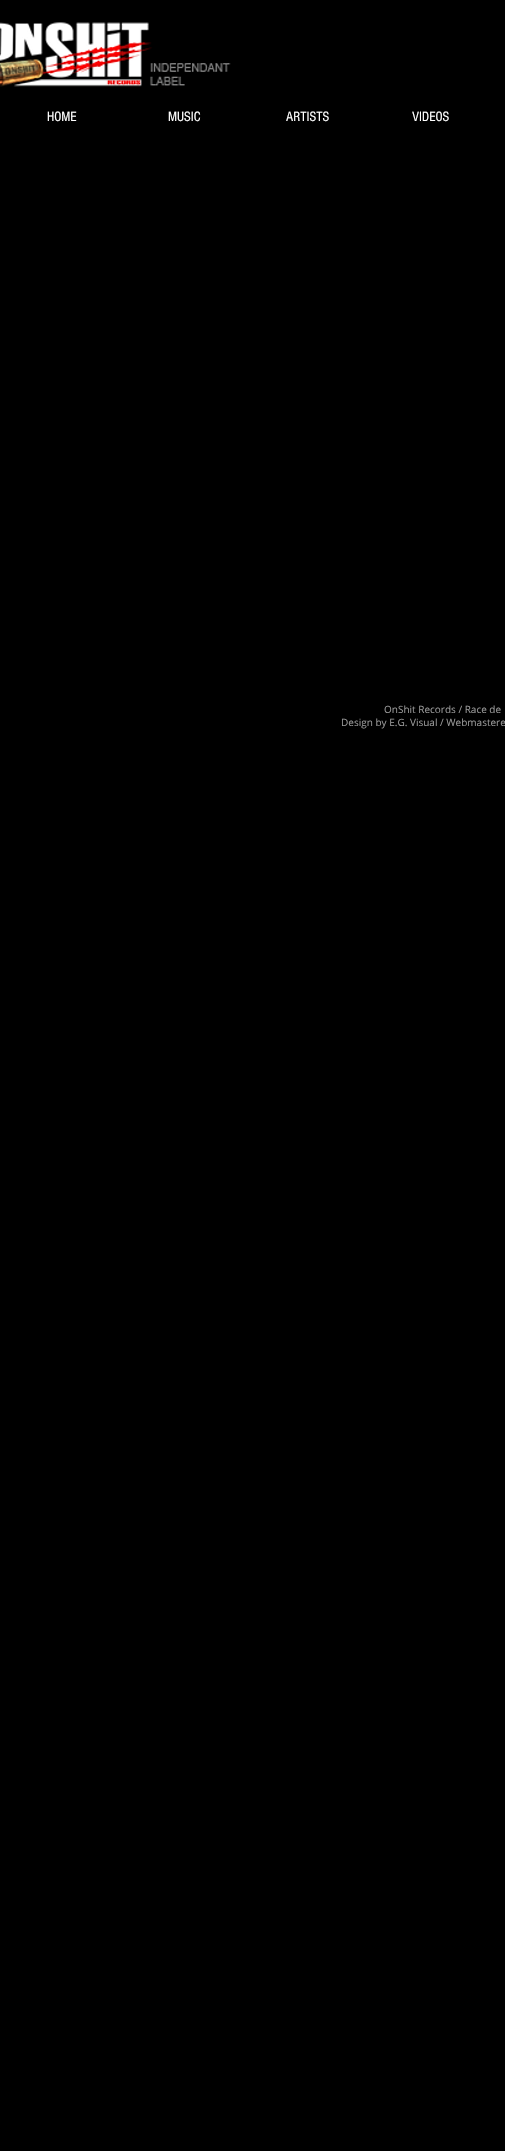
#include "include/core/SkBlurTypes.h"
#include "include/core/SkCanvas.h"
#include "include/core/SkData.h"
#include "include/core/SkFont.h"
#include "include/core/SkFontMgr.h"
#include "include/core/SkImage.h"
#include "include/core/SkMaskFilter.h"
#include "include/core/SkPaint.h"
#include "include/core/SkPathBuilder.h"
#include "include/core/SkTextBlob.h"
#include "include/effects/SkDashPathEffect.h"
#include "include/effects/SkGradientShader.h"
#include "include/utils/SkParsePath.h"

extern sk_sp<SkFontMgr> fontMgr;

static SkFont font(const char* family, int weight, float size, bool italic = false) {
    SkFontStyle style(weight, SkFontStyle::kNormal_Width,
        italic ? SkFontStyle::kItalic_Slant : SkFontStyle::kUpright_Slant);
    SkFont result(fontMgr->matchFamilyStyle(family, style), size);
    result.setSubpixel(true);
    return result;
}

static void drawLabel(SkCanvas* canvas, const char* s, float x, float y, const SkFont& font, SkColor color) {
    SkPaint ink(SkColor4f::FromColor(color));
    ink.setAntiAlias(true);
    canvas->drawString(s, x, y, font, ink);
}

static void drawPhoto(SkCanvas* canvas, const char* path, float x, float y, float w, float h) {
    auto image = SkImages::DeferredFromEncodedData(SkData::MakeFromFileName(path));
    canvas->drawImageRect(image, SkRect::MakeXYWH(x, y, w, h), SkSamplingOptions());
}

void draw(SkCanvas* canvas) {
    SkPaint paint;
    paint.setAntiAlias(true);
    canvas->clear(0xFF000000);
    drawPhoto(canvas, "assets/img1.png", 0, 22, 231, 65);
    SkFont font1 = font("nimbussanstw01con", 400, 14);
    drawLabel(canvas, "HOME", 47, 121, font1, 0xFFFFFFFF);
    drawLabel(canvas, "MUSIC", 168, 121, font1, 0xFFFFFFFF);
    drawLabel(canvas, "ARTISTS", 286, 121, font1, 0xFFFFFFFF);
    drawLabel(canvas, "VIDEOS", 412, 121, font1, 0xFFFFFFFF);
    SkFont font2 = font("Open Sans", 400, 10);
    drawLabel(canvas, "OnShit Records / Race de", 384, 713, font2, 0xFF999999);
    drawLabel(canvas, "Design by E.G. Visual / Webmastere", 341, 726, font2, 0xFF999999);
}
